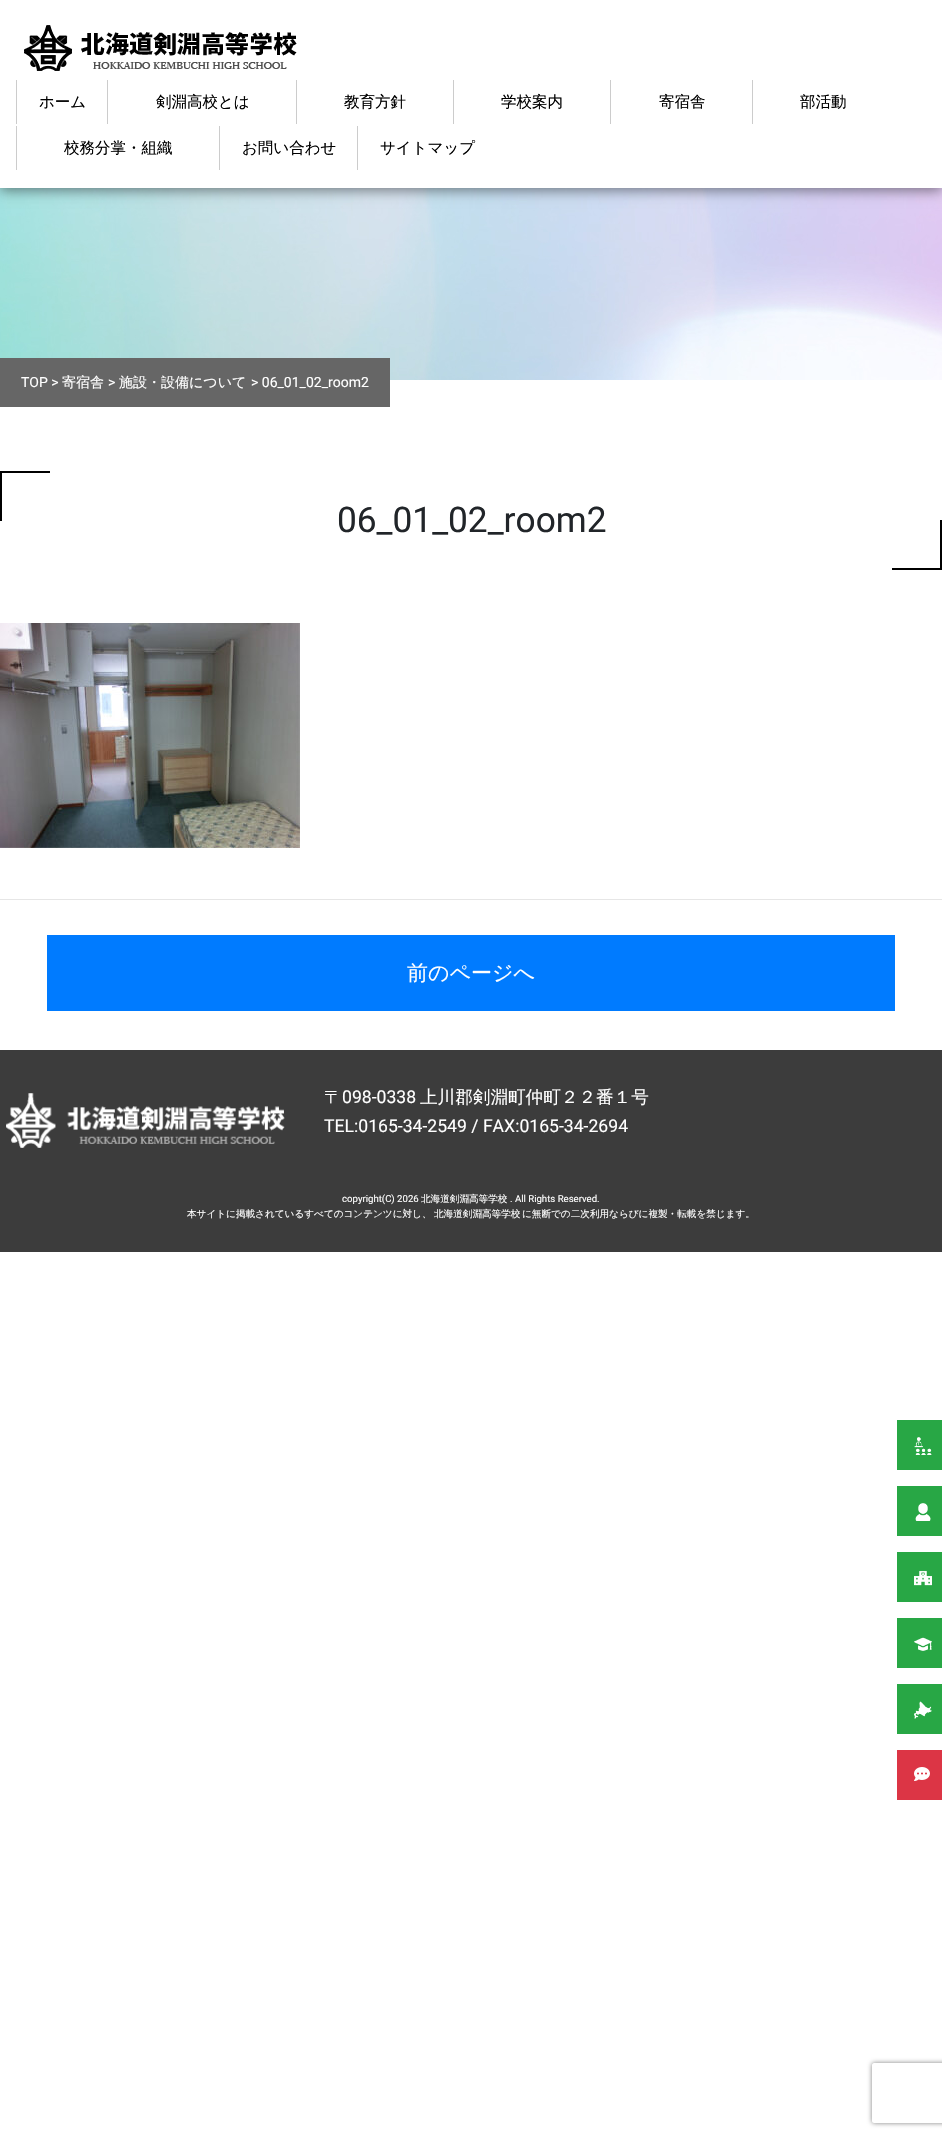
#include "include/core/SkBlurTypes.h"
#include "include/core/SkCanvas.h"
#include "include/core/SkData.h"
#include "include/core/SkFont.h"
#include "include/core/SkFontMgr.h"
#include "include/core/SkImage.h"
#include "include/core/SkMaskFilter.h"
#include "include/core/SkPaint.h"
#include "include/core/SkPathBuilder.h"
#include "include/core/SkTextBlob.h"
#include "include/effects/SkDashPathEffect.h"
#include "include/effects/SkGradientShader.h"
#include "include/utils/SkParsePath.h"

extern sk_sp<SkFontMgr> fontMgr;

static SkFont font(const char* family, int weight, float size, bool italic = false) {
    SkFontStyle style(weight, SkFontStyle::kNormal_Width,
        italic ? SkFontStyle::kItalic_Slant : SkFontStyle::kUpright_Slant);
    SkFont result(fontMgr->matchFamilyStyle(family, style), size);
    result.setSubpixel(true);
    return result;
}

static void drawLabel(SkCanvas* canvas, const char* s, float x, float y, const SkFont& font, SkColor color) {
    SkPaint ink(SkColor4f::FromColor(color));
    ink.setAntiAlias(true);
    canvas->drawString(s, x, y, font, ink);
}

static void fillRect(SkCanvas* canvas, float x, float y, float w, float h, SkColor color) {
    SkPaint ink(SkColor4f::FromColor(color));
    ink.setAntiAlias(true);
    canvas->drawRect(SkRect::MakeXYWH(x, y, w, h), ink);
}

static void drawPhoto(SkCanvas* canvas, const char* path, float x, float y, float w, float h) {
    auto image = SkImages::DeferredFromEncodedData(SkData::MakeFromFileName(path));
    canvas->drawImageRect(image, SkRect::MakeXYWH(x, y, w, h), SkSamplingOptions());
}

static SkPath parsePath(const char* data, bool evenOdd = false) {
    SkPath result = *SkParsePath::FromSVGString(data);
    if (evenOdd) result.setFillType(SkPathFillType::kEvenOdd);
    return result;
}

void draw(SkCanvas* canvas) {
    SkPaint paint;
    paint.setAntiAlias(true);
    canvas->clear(0xFFFFFFFF);
    drawPhoto(canvas, "assets/img2.png", 0, 188, 942, 192);
    paint.setColor(0x70000000);
    paint.setMaskFilter(SkMaskFilter::MakeBlur(kNormal_SkBlurStyle, 6));
    canvas->drawRect(SkRect::MakeXYWH(0, 3, 942, 188), paint);
    paint.setMaskFilter(nullptr);
    fillRect(canvas, 0, 0, 942, 188, 0xFFFFFFFF);
    drawPhoto(canvas, "assets/img1.png", 24, 25, 273, 46);
    fillRect(canvas, 16, 80, 1, 44, 0xFFCCCCCC);
    SkFont font1 = font("WenQuanYi Zen Hei", 500, 15.5f);
    drawLabel(canvas, "ホーム", 39, 107, font1, 0xFF000000);
    fillRect(canvas, 107, 80, 1, 44, 0xFFCCCCCC);
    drawLabel(canvas, "剣淵高校とは", 156, 107, font1, 0xFF000000);
    fillRect(canvas, 296, 80, 1, 44, 0xFFCCCCCC);
    drawLabel(canvas, "教育方針", 344, 107, font1, 0xFF000000);
    fillRect(canvas, 453, 80, 1, 44, 0xFFCCCCCC);
    drawLabel(canvas, "学校案内", 501, 107, font1, 0xFF000000);
    fillRect(canvas, 610, 80, 1, 44, 0xFFCCCCCC);
    drawLabel(canvas, "寄宿舎", 659, 107, font1, 0xFF000000);
    fillRect(canvas, 752, 80, 1, 44, 0xFFCCCCCC);
    drawLabel(canvas, "部活動", 800, 107, font1, 0xFF000000);
    fillRect(canvas, 16, 126, 1, 44, 0xFFCCCCCC);
    drawLabel(canvas, "校務分掌・組織", 64, 153, font1, 0xFF000000);
    fillRect(canvas, 219, 126, 1, 44, 0xFFCCCCCC);
    drawLabel(canvas, "お問い合わせ", 242, 153, font1, 0xFF000000);
    fillRect(canvas, 357, 126, 1, 44, 0xFFCCCCCC);
    drawLabel(canvas, "サイトマップ", 380, 153, font1, 0xFF000000);
    fillRect(canvas, 0, 358, 390, 49, 0xFF666666);
    SkFont font2 = font("Roboto", 400, 14);
    drawLabel(canvas, "TOP >", 21, 387, font2, 0xFFFFFFFF);
    SkFont font3 = font("WenQuanYi Zen Hei", 500, 14);
    drawLabel(canvas, "寄宿舎", 62, 387, font3, 0xFFFFFFFF);
    drawLabel(canvas, ">", 108, 387, font2, 0xFFFFFFFF);
    drawLabel(canvas, "施設・設備について", 119, 387, font3, 0xFFFFFFFF);
    drawLabel(canvas, "> 06_01_02_room2", 251, 387, font2, 0xFFFFFFFF);
    fillRect(canvas, 0, 471, 50, 2, 0xFF000000);
    fillRect(canvas, 0, 471, 2, 50, 0xFF000000);
    SkFont font4 = font("Roboto", 400, 35.25f);
    drawLabel(canvas, "06_01_02_room2", 337, 532, font4, 0xFF212529);
    fillRect(canvas, 940, 520, 2, 50, 0xFF000000);
    fillRect(canvas, 892, 568, 50, 2, 0xFF000000);
    drawPhoto(canvas, "assets/img3.png", 0, 623, 300, 225);
    fillRect(canvas, 0, 899, 942, 1, 0xFFE6E6E6);
    fillRect(canvas, 47, 935, 848, 76, 0xFF007BFF);
    SkFont font5 = font("WenQuanYi Zen Hei", 500, 21);
    drawLabel(canvas, "前のページへ", 407, 980, font5, 0xFFFFFFFF);
    fillRect(canvas, 0, 1050, 942, 202, 0xFF3C3C3C);
    drawPhoto(canvas, "assets/img4.png", 6, 1093, 279, 55);
    SkFont font6 = font("WenQuanYi Zen Hei", 500, 17.6f);
    drawLabel(canvas, "〒", 324, 1103, font6, 0xFFFFFFFF);
    SkFont font7 = font("Roboto", 400, 17.6f);
    drawLabel(canvas, "098-0338", 342, 1103, font7, 0xFFFFFFFF);
    drawLabel(canvas, "上川郡剣淵町仲町２２番１号", 420, 1103, font6, 0xFFFFFFFF);
    drawLabel(canvas, "TEL:0165-34-2549 / FAX:0165-34-2694", 324, 1132, font7, 0xFFFFFFFF);
    SkFont font8 = font("Roboto", 400, 9.6f);
    drawLabel(canvas, "copyright(C) 2026", 342, 1202, font8, 0xFFFFFFFF);
    SkFont font9 = font("WenQuanYi Zen Hei", 500, 9.6f);
    drawLabel(canvas, "北海道剣淵高等学校", 421, 1202, font9, 0xFFFFFFFF);
    drawLabel(canvas, ". All Rights Reserved.", 510, 1202, font8, 0xFFFFFFFF);
    drawLabel(canvas, "本サイトに掲載されているすべてのコンテンツに対し、", 187, 1217, font9, 0xFFFFFFFF);
    drawLabel(canvas, "北海道剣淵高等学校", 434, 1217, font9, 0xFFFFFFFF);
    drawLabel(canvas, "に無断での二次利用ならびに複製・転載を禁じます。", 522, 1217, font9, 0xFFFFFFFF);
    fillRect(canvas, 897, 1420, 45, 50, 0xFF28A745);
    drawPhoto(canvas, "assets/img5.png", 914, 1437, 18, 18);
    fillRect(canvas, 897, 1486, 45, 50, 0xFF28A745);
    drawPhoto(canvas, "assets/img6.png", 915, 1503, 16, 18);
    fillRect(canvas, 897, 1552, 45, 50, 0xFF28A745);
    drawPhoto(canvas, "assets/img7.png", 914, 1570, 18, 16);
    fillRect(canvas, 897, 1618, 45, 50, 0xFF28A745);
    drawPhoto(canvas, "assets/img8.png", 914, 1637, 18, 14);
    fillRect(canvas, 897, 1684, 45, 50, 0xFF28A745);
    drawPhoto(canvas, "assets/img9.png", 914, 1701, 18, 18);
    fillRect(canvas, 897, 1750, 45, 50, 0xFFDC3545);
    drawPhoto(canvas, "assets/img10.png", 914, 1767, 16, 14);
    canvas->save();
    canvas->clipPath(parsePath("M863 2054H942V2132H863ZM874 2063H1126C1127 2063 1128 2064 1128 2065V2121C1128 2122 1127 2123 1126 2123H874C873 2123 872 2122 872 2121V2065C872 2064 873 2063 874 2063Z", true), true);
    paint.setColor(0xFF808080);
    paint.setMaskFilter(SkMaskFilter::MakeBlur(kNormal_SkBlurStyle, 2.5f));
    canvas->drawRoundRect(SkRect::MakeXYWH(872, 2063, 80, 60), 2, 2, paint);
    paint.setMaskFilter(nullptr);
    canvas->restore();
}
